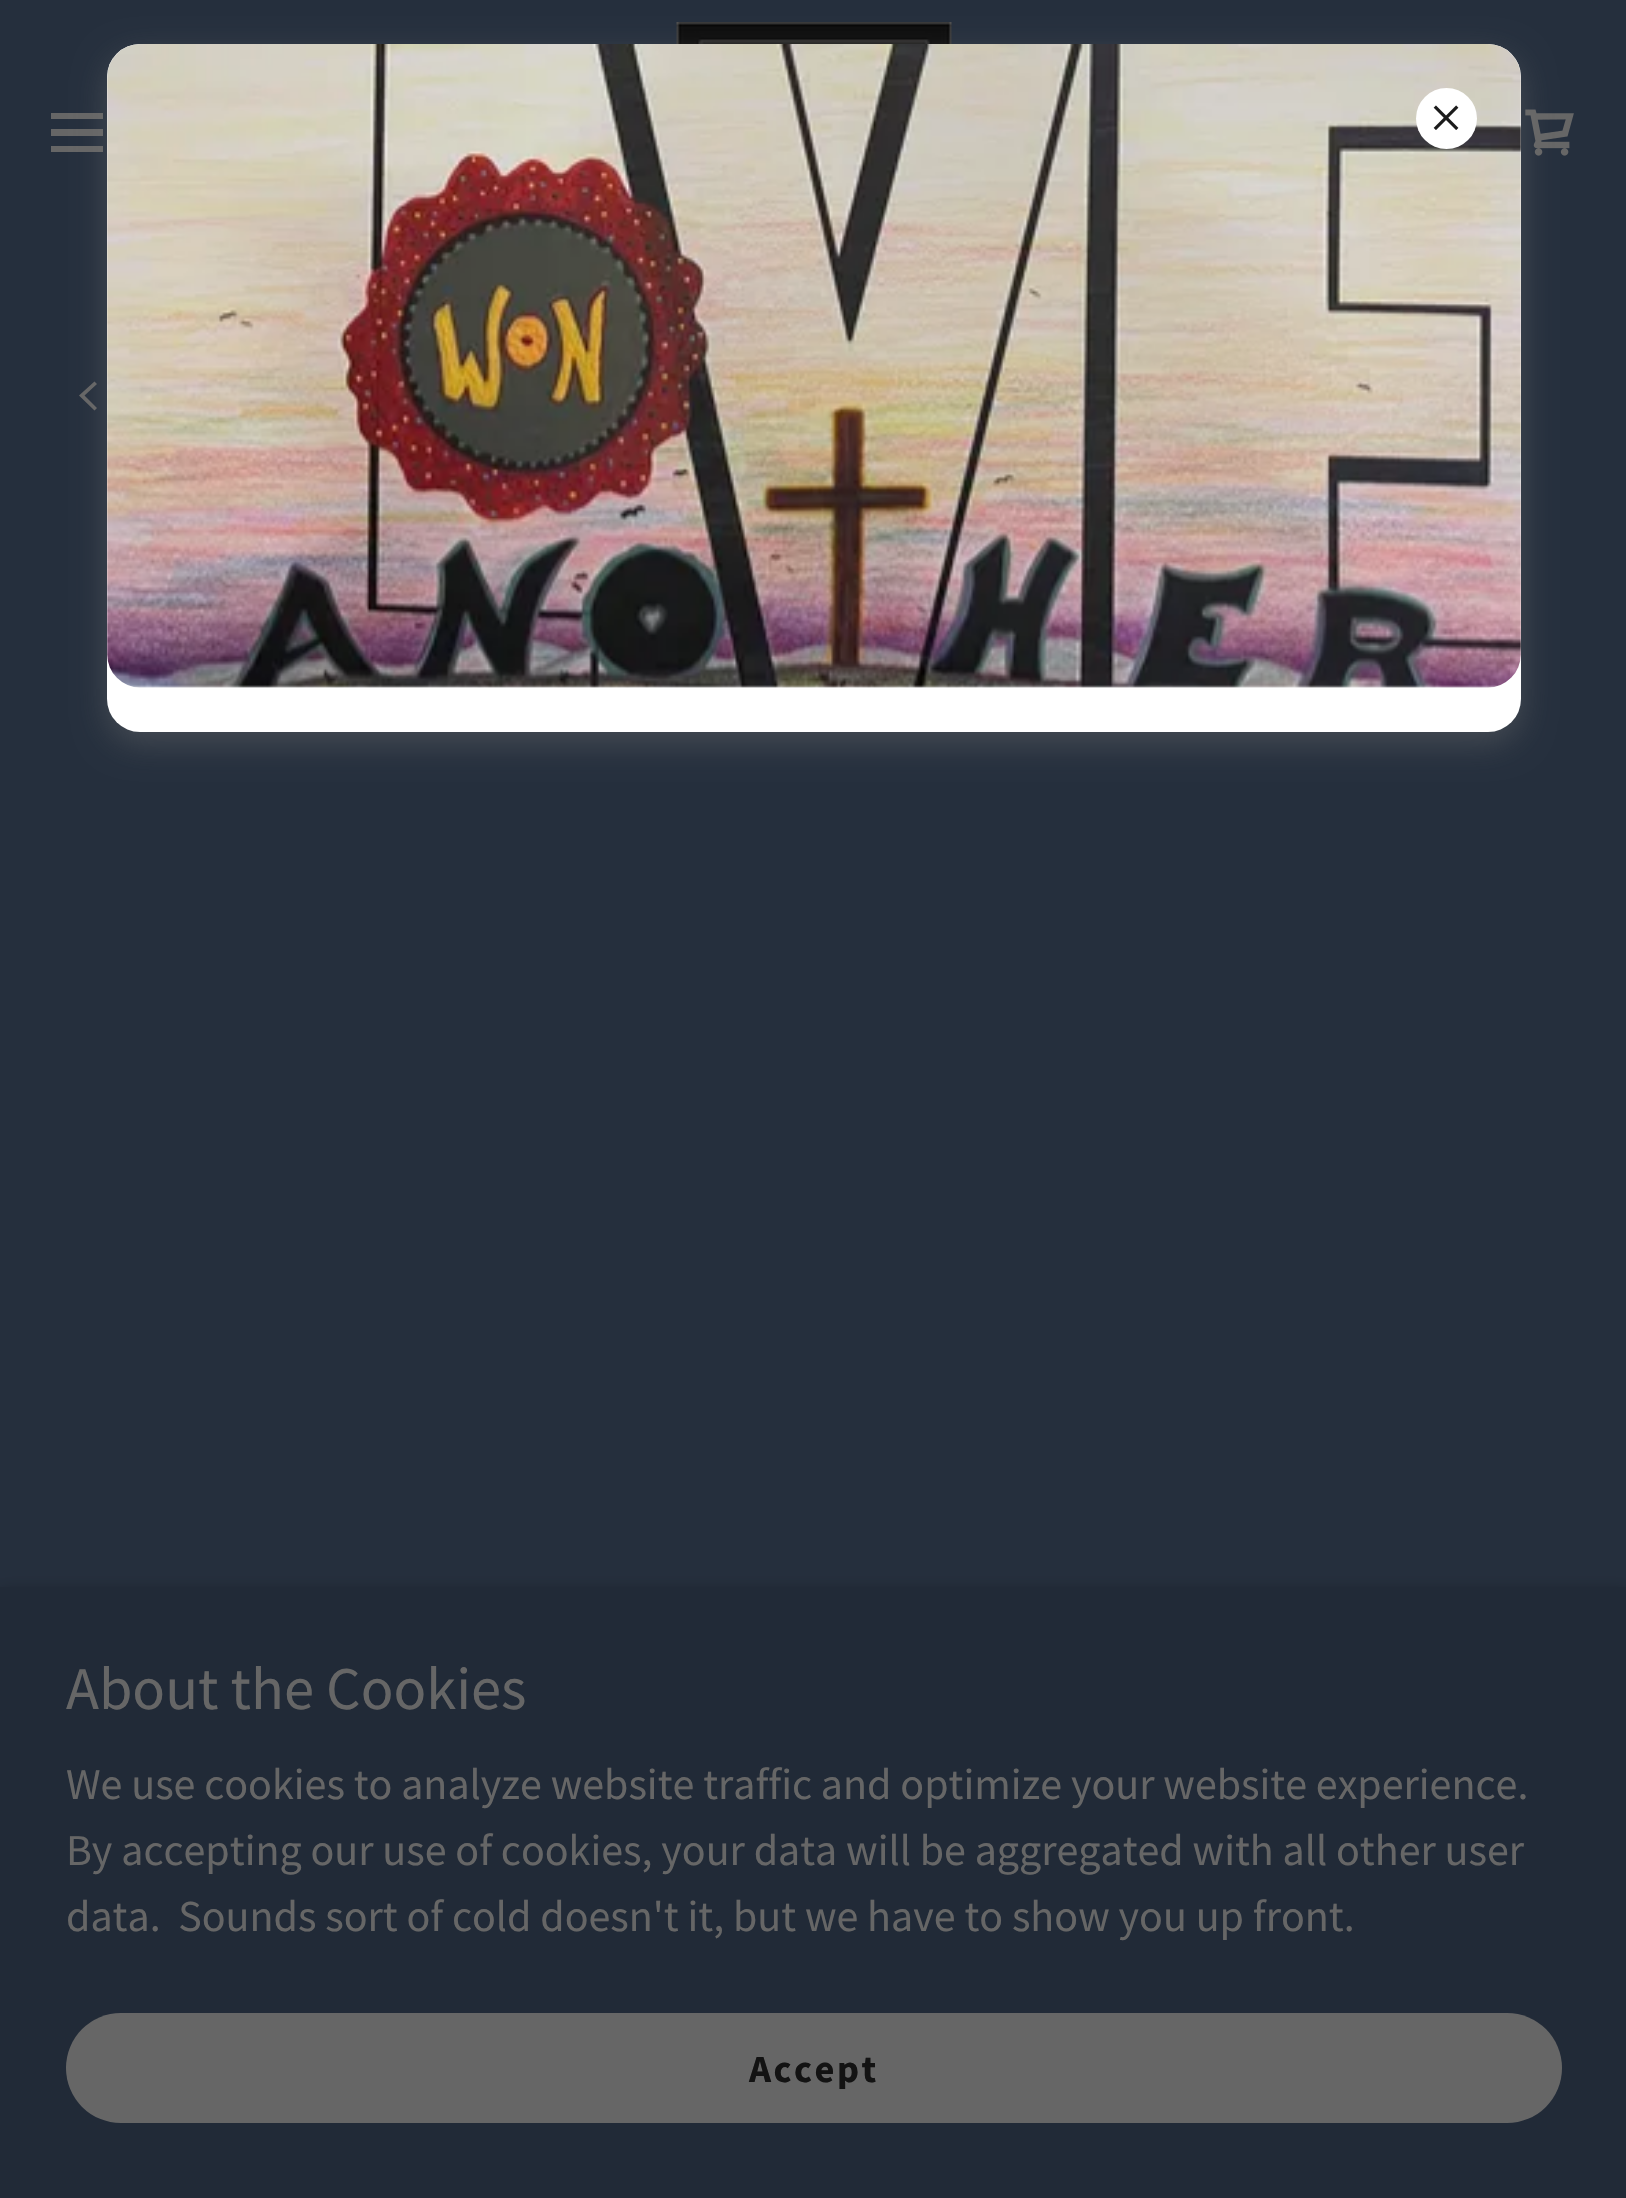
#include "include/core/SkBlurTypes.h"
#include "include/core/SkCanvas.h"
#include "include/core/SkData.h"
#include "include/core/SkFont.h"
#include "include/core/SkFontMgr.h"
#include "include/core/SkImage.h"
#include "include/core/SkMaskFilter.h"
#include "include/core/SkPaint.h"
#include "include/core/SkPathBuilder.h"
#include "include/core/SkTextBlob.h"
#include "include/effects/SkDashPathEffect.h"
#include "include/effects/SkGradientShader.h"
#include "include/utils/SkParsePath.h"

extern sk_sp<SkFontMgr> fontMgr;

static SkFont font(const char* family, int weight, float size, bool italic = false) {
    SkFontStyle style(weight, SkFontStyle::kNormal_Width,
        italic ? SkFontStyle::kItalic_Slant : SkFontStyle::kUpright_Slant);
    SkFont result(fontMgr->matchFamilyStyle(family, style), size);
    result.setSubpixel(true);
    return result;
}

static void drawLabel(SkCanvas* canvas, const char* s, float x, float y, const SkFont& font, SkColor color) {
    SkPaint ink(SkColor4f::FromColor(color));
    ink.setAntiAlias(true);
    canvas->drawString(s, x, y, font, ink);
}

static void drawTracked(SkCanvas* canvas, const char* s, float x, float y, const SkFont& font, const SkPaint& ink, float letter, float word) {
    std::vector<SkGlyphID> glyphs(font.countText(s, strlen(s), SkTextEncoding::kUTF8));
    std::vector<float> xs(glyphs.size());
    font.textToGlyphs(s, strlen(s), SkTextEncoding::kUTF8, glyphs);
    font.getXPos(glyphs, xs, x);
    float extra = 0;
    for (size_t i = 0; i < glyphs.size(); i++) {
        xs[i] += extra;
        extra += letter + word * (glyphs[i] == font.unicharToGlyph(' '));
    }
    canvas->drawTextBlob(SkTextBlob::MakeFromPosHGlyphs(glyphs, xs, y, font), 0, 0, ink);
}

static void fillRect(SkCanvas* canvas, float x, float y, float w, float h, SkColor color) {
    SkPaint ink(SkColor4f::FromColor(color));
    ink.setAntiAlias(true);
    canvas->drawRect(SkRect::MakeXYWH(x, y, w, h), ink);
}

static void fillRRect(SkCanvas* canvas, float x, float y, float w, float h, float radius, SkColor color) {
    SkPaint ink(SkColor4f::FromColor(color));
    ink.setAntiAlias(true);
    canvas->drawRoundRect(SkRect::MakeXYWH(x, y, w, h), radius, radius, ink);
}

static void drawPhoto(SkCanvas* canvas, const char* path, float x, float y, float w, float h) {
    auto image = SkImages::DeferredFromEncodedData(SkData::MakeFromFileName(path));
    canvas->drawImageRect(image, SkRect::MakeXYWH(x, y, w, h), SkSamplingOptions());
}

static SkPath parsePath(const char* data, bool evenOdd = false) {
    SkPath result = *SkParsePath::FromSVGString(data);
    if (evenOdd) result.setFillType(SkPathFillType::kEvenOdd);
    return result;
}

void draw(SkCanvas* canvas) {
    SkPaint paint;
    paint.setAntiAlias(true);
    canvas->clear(0xFF252F3D);
    drawPhoto(canvas, "assets/img3.png", 676, 22, 276, 22);
    fillRect(canvas, 51, 113, 52, 6, 0xFF666666);
    fillRect(canvas, 51, 129, 52, 7, 0xFF666666);
    fillRect(canvas, 51, 146, 52, 6, 0xFF666666);
    drawPhoto(canvas, "assets/img4.png", 1525, 109, 49, 47);
    paint.setColor(0xFF666666);
    canvas->drawPath(parsePath("M94.5 381.5L79 395.5L94.5 410.5L97 408L84.5 395.5L97 384Z", true), paint);
    paint.setColor(0x66757575);
    paint.setMaskFilter(SkMaskFilter::MakeBlur(kNormal_SkBlurStyle, 16.5f));
    canvas->drawRoundRect(SkRect::MakeXYWH(107, 55, 1414, 688), 33, 33, paint);
    paint.setMaskFilter(nullptr);
    fillRRect(canvas, 107, 44, 1414, 688, 33, 0xFFFFFFFF);
    drawPhoto(canvas, "assets/img1.png", 107, 44, 1414, 644);
    paint.setColor(0xFFFFFFFF);
    canvas->drawCircle(1446.5f, 118.5f, 30.5f, paint);
    drawPhoto(canvas, "assets/img2.png", 1433, 105, 26, 25);
    paint.setColor(0x4D000000);
    paint.setMaskFilter(SkMaskFilter::MakeBlur(kNormal_SkBlurStyle, 8));
    canvas->drawRect(SkRect::MakeXYWH(0, 1592, 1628, 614), paint);
    paint.setMaskFilter(nullptr);
    fillRect(canvas, 0, 1587, 1626, 611, 0xFF212A37);
    SkFont font1 = font("Source Sans Pro", 400, 60.5f);
    drawLabel(canvas, "About the Cookies", 66, 1709, font1, 0xFF666666);
    SkFont font2 = font("Source Sans Pro", 400, 44);
    drawLabel(canvas, "We use cookies to analyze website traffic and optimize your website experience.", 66, 1799, font2, 0xFF666666);
    drawLabel(canvas, "By accepting our use of cookies, your data will be aggregated with all other user", 66, 1865, font2, 0xFF666666);
    drawLabel(canvas, "data.  Sounds sort of cold doesn't it, but we have to show you up front.", 66, 1931, font2, 0xFF666666);
    fillRRect(canvas, 66, 2013, 1496, 110, 55, 0xFF666666);
    SkFont font3 = font("Source Sans Pro", 700, 38.5f);
    paint.setColor(0xFF131313);
    drawTracked(canvas, "Accept", 749, 2082, font3, paint, 2.5f, 0);
}
